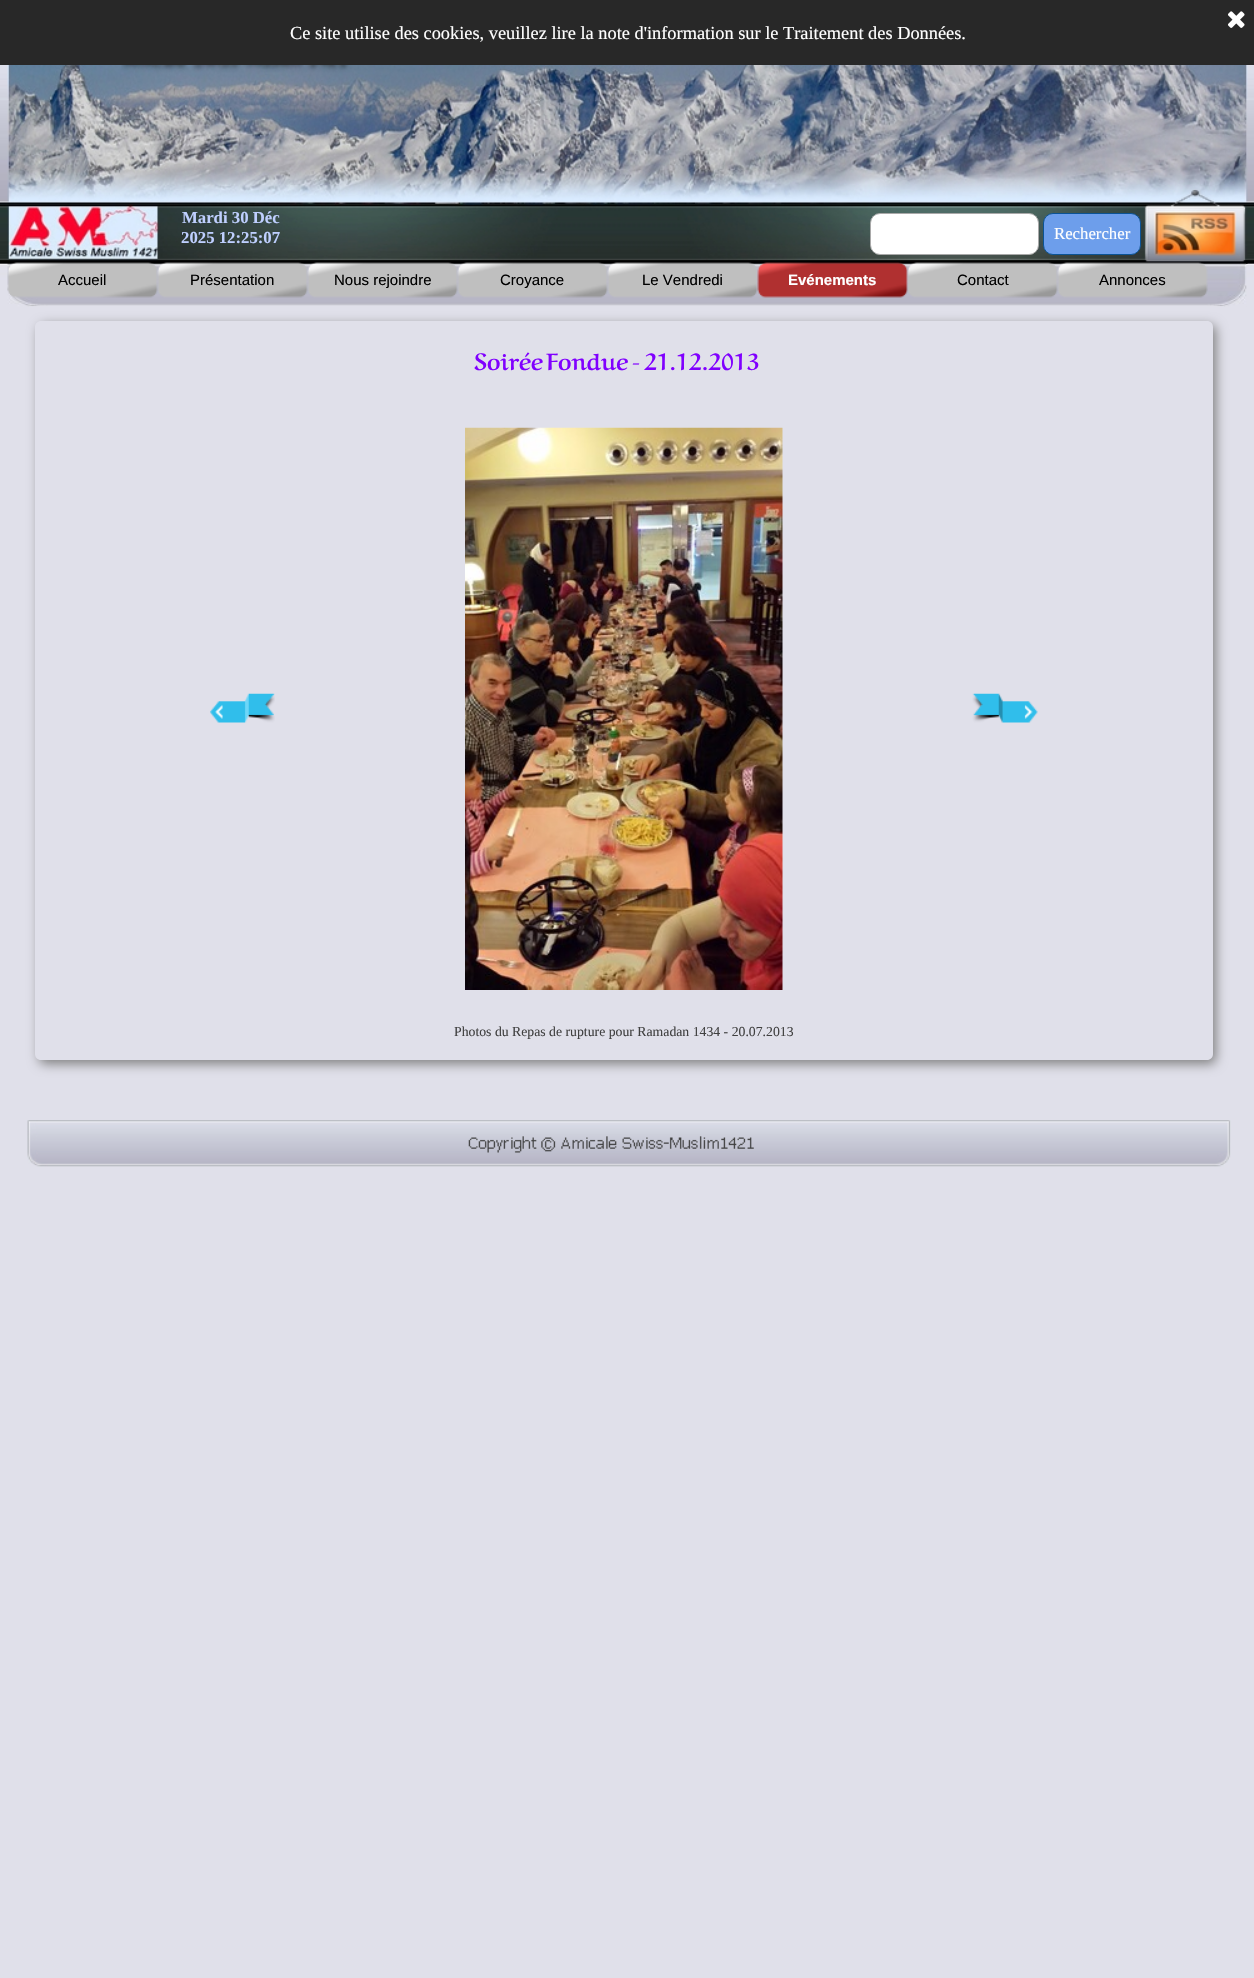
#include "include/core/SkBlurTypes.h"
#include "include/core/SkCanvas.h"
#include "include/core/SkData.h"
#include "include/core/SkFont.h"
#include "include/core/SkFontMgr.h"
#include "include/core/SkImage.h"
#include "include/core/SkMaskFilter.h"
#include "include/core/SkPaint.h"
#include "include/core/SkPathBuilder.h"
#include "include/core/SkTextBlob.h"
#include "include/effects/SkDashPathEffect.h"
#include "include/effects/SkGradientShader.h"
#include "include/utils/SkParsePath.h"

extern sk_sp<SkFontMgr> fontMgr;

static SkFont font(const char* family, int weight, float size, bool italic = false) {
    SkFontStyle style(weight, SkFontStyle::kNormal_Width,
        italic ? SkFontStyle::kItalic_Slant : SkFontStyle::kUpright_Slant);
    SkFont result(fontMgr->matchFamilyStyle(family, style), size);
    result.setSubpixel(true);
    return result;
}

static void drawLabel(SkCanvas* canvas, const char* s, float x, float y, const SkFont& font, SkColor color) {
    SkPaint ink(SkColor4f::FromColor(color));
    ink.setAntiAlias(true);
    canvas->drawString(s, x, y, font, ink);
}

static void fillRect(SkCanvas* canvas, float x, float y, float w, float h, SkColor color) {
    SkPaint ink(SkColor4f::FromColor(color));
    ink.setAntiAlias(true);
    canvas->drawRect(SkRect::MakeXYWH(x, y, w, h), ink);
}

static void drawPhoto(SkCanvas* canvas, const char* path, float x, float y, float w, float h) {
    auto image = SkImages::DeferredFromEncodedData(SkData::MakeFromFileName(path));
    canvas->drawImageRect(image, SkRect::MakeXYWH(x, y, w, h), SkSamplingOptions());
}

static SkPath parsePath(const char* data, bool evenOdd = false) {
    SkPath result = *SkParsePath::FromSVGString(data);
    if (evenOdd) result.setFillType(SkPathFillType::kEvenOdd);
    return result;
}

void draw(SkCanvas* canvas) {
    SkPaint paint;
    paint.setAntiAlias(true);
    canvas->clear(0xFFFFFFFF);
    fillRect(canvas, 0, 0, 1254, 65, 0xFF282828);
    drawPhoto(canvas, "assets/img1.png", 1228, 11, 17, 17);
    SkFont font1 = font("Liberation Serif", 400, 18.35f);
    drawLabel(canvas, "Ce site utilise des cookies, veuillez lire la note d'information sur le Traitement des Données.", 290, 39, font1, 0xFFFFFFFF);
    drawPhoto(canvas, "assets/img2.png", 0, 65, 1254, 1913);
    drawPhoto(canvas, "assets/img3.png", 7, 65, 1241, 242);
    SkFont font2 = font("Liberation Serif", 700, 16.75f);
    drawLabel(canvas, "Mardi 30 Déc", 182, 223, font2, 0xFFBFCFFF);
    drawLabel(canvas, "2025 12:25:07", 181, 243, font2, 0xFFBFCFFF);
    paint.setColor(0xFFFFFFFF);
    canvas->drawRoundRect(SkRect::MakeXYWH(870.5f, 213.5f, 168, 41), 9.5f, 9.5f, paint);
    paint.setStroke(true);
    paint.setStrokeWidth(1);
    paint.setColor(0xFFA9A9A9);
    canvas->drawRoundRect(SkRect::MakeXYWH(870.5f, 213.5f, 168, 41), 9.5f, 9.5f, paint);
    paint.setStroke(false);
    paint.setColor(0xFF6D9EEB);
    canvas->drawRoundRect(SkRect::MakeXYWH(1043.5f, 213.5f, 97, 41), 9.5f, 9.5f, paint);
    paint.setStroke(true);
    paint.setColor(0xFF0B5394);
    canvas->drawRoundRect(SkRect::MakeXYWH(1043.5f, 213.5f, 97, 41), 9.5f, 9.5f, paint);
    SkFont font3 = font("Liberation Serif", 400, 16.75f);
    drawLabel(canvas, "Rechercher", 1054, 239, font3, 0xFFFFFFFF);
    drawPhoto(canvas, "assets/img4.png", 7, 262, 151, 36);
    SkFont font4 = font("Liberation Sans", 400, 15);
    drawLabel(canvas, "Accueil", 58, 285, font4, 0xFF000000);
    drawPhoto(canvas, "assets/img5.png", 157, 262, 151, 36);
    drawLabel(canvas, "Présentation", 190, 285, font4, 0xFF000000);
    drawPhoto(canvas, "assets/img6.png", 307, 262, 151, 36);
    drawLabel(canvas, "Nous rejoindre", 334, 285, font4, 0xFF000000);
    drawPhoto(canvas, "assets/img5.png", 457, 262, 151, 36);
    drawLabel(canvas, "Croyance", 500, 285, font4, 0xFF000000);
    drawPhoto(canvas, "assets/img5.png", 607, 262, 151, 36);
    drawLabel(canvas, "Le Vendredi", 642, 285, font4, 0xFF000000);
    drawPhoto(canvas, "assets/img7.png", 757, 262, 151, 36);
    SkFont font5 = font("Liberation Sans", 700, 15);
    drawLabel(canvas, "Evénements", 788, 285, font5, 0xFFFFFFFF);
    drawPhoto(canvas, "assets/img8.png", 907, 262, 151, 36);
    drawLabel(canvas, "Contact", 957, 285, font4, 0xFF000000);
    drawPhoto(canvas, "assets/img9.png", 1057, 262, 151, 36);
    drawLabel(canvas, "Annonces", 1099, 285, font4, 0xFF000000);
    fillRect(canvas, 29, 306, 1195, 1, 0xBFE0E0EA);
    canvas->save();
    canvas->clipPath(parsePath("M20 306H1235V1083H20ZM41 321H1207C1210.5 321 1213 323.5 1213 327V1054C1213 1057.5 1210.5 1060 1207 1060H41C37.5 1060 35 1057.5 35 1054V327C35 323.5 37.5 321 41 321Z", true), true);
    paint.setStroke(false);
    paint.setColor(0xFF808080);
    paint.setMaskFilter(SkMaskFilter::MakeBlur(kNormal_SkBlurStyle, 6));
    canvas->drawRoundRect(SkRect::MakeXYWH(39, 325, 1177, 739), 6, 6, paint);
    paint.setMaskFilter(nullptr);
    canvas->restore();
    SkFont font6 = font("Aref Ruqaa", 700, 23.3f);
    drawLabel(canvas, "Soirée Fondue - 21.12.2013", 474, 370, font6, 0xFF8000FF);
    drawPhoto(canvas, "assets/img10.png", 210, 693, 65, 30);
    drawPhoto(canvas, "assets/img11.png", 465, 427, 318, 563);
    drawPhoto(canvas, "assets/img12.png", 972, 693, 66, 30);
    SkFont font7 = font("Liberation Serif", 400, 13.75f);
    drawLabel(canvas, "Photos du Repas de rupture pour Ramadan 1434 - 20.07.2013", 454, 1036, font7, 0xFF404040);
    drawPhoto(canvas, "assets/img13.png", 27, 1120, 1204, 47);
}
